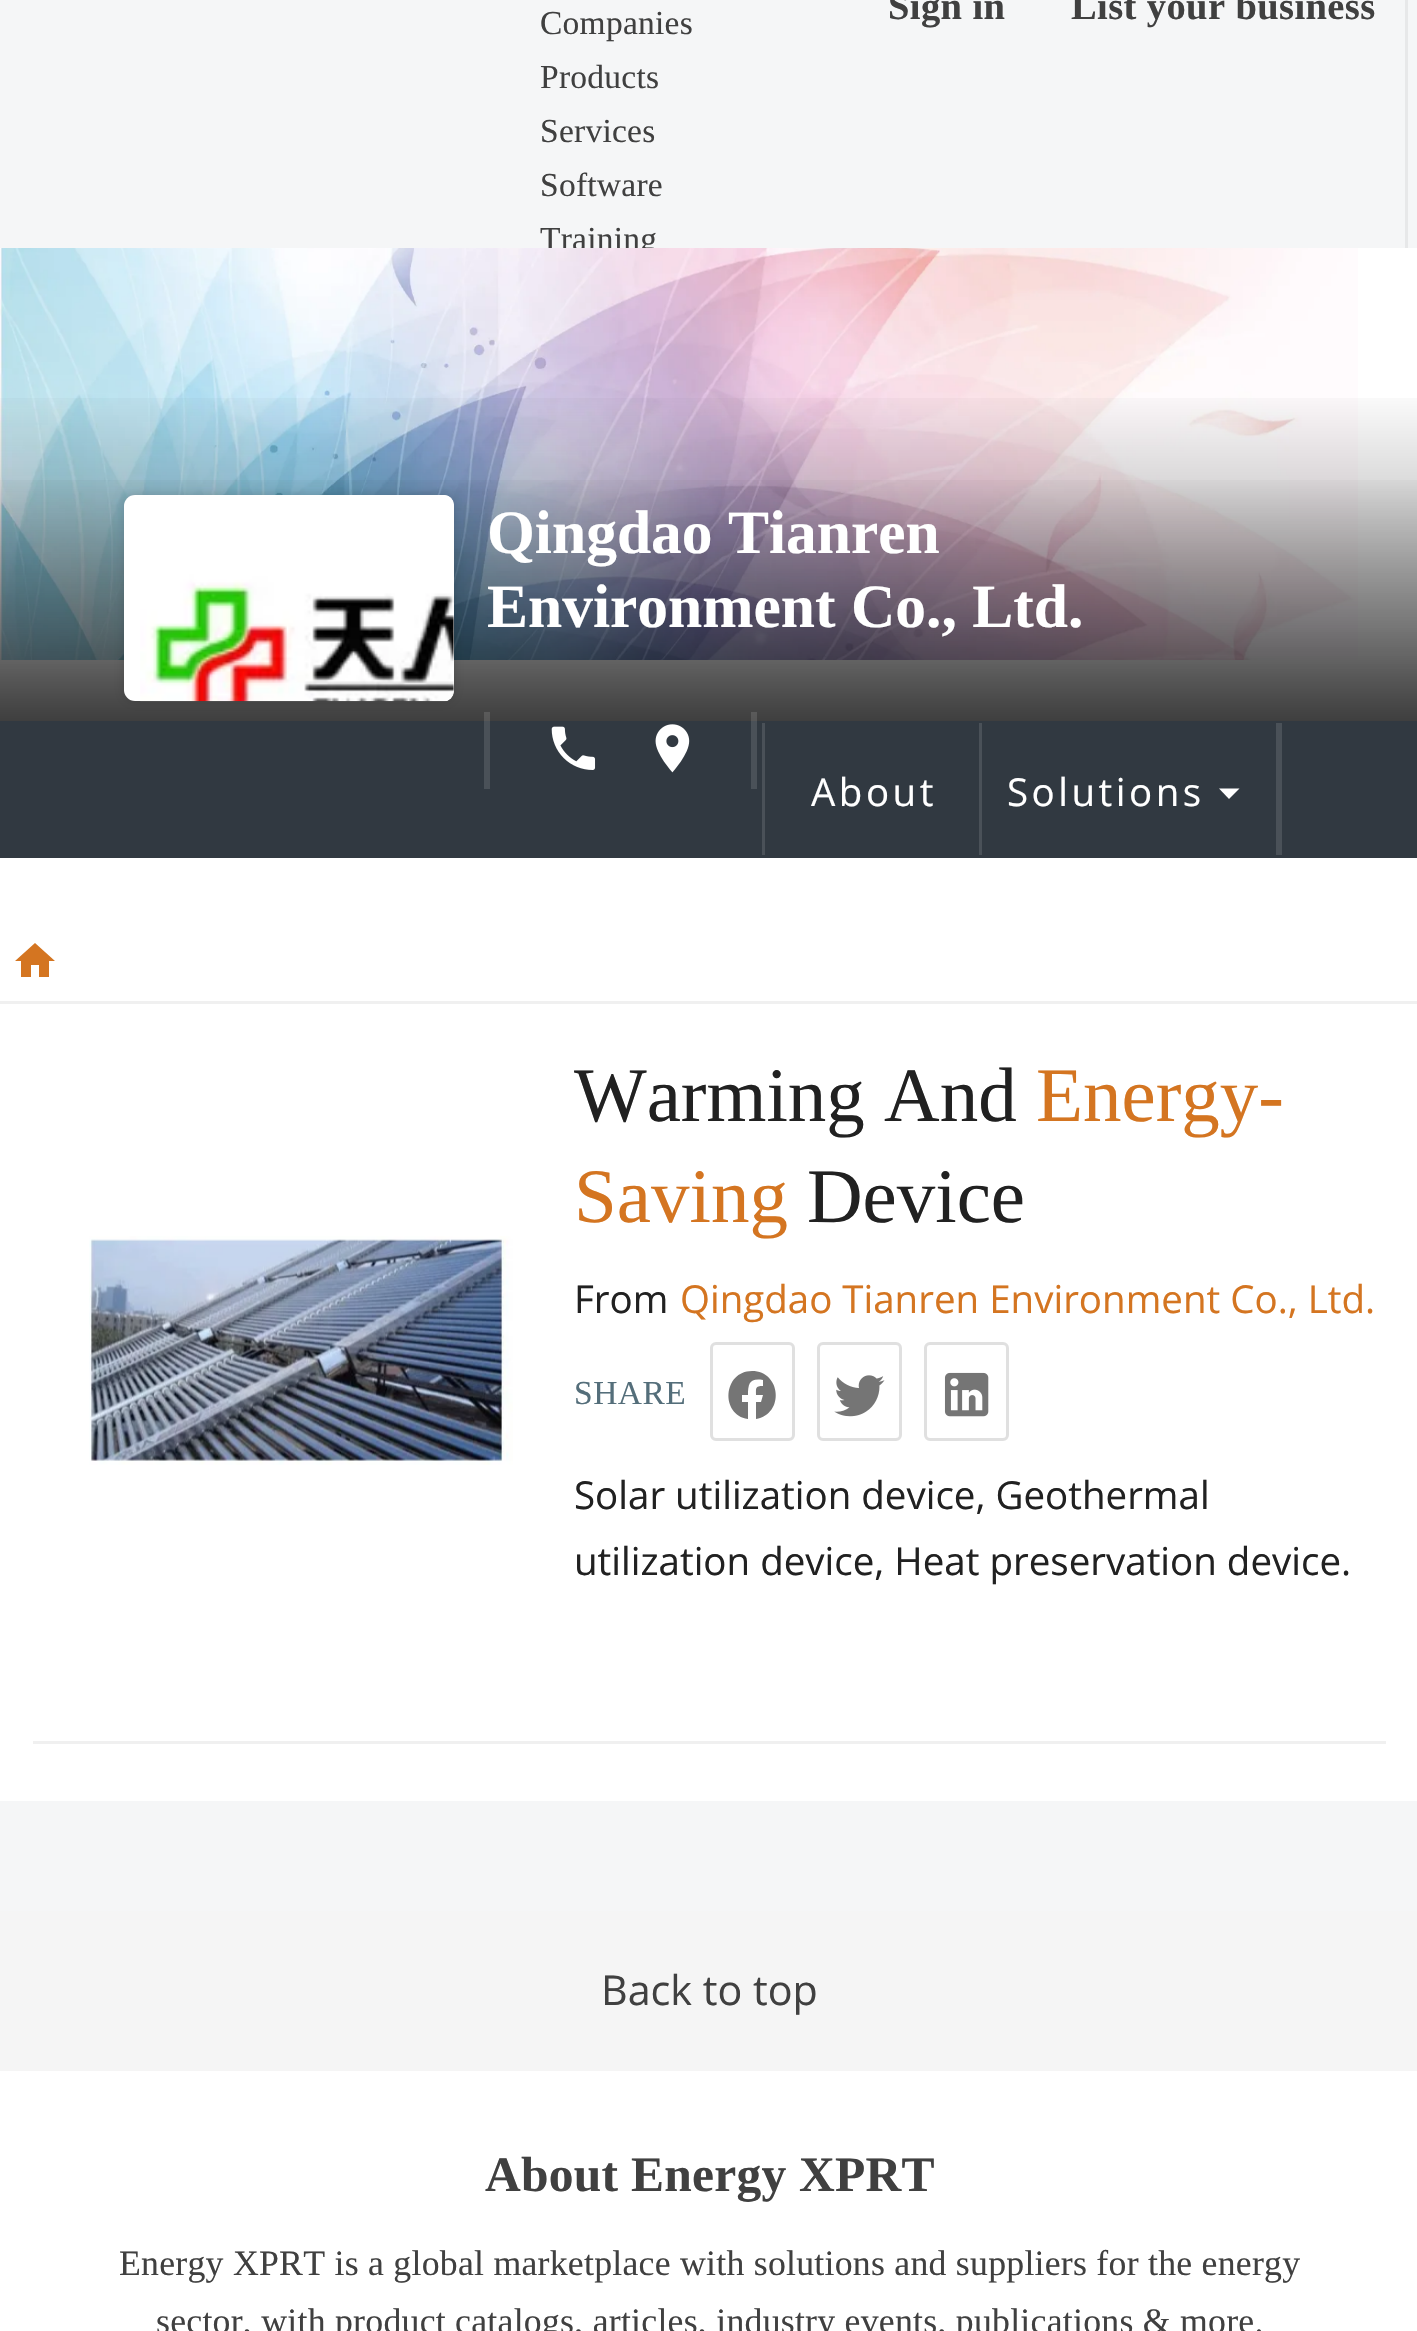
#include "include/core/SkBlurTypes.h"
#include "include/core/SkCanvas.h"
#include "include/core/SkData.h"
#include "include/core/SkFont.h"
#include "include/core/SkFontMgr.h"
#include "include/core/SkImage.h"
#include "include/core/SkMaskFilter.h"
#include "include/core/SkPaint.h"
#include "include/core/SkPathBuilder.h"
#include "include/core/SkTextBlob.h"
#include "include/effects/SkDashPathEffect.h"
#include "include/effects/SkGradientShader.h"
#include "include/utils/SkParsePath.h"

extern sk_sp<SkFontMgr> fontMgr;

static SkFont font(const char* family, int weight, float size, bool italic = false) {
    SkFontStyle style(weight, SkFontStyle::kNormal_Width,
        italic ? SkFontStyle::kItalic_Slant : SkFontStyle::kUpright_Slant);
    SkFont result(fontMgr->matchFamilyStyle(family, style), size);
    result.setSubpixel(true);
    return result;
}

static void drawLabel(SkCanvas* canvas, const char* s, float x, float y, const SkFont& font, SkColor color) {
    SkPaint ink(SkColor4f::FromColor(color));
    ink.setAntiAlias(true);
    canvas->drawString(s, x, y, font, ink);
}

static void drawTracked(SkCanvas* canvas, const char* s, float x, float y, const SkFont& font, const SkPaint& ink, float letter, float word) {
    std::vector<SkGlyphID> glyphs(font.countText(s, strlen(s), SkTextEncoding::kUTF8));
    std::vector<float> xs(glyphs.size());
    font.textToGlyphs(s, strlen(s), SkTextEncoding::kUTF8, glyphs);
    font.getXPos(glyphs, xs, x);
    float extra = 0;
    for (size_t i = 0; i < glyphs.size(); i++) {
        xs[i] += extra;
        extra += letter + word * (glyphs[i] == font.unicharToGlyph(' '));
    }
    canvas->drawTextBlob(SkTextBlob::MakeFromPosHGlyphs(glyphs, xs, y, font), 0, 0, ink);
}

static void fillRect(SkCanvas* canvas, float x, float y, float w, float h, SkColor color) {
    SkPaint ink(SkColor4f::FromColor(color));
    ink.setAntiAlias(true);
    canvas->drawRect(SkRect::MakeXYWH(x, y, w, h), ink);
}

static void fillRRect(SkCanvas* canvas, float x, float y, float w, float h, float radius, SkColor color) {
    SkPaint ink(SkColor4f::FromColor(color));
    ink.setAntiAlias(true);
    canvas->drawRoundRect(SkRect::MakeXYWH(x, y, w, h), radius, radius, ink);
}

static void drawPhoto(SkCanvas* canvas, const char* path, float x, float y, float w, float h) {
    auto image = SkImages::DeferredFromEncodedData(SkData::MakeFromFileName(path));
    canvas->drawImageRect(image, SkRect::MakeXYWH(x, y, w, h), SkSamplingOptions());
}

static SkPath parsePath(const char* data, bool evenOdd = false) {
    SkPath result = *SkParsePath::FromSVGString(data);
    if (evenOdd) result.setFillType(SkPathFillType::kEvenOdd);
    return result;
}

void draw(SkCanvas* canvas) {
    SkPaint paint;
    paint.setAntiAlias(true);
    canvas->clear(0xFFFFFFFF);
    fillRect(canvas, 0, 0, 1417, 248, 0xFFF5F6F7);
    SkFont font1 = font("Liberation Serif", 400, 33.5f);
    paint.setColor(0xFF404040);
    drawTracked(canvas, "Companies", 540, 34, font1, paint, 0.25f, 0);
    drawTracked(canvas, "Products", 540, 88, font1, paint, 0.25f, 0);
    drawTracked(canvas, "Services", 540, 142, font1, paint, 0.25f, 0);
    drawTracked(canvas, "Software", 540, 196, font1, paint, 0.25f, 0);
    canvas->save();
    canvas->clipRect(SkRect::MakeXYWH(0, 0, 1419, 248));
    drawTracked(canvas, "Training", 540, 250, font1, paint, 0.25f, 0);
    canvas->restore();
    SkFont font2 = font("Liberation Serif", 700, 38.5f);
    drawTracked(canvas, "Sign in", 888, 19, font2, paint, 0.4f, 0);
    drawTracked(canvas, "List your business", 1071, 19, font2, paint, 0.4f, 0);
    fillRect(canvas, 1405, 0, 3, 248, 0xFFE7E8E9);
    drawPhoto(canvas, "assets/img1.png", 0, 248, 1358, 412);
    {
        const SkColor colors[] = {0x00000000, 0x59000000, 0xA6000000};
        const float stops[] = {0.01f, 0.6f, 1};
        const SkPoint ends[] = {{710, 379}, {710, 792}};
        paint.setShader(SkGradientShader::MakeLinear(ends, colors, stops, 3, SkTileMode::kClamp));
        paint.setAlpha(255);
    }
    canvas->drawRect(SkRect::MakeXYWH(0, 398, 1417, 323), paint);
    {
        const SkColor colors[] = {0x00000000, 0x59000000, 0xA6000000};
        const float stops[] = {0.01f, 0.6f, 1};
        const SkPoint ends[] = {{710, 465}, {710, 792}};
        paint.setShader(SkGradientShader::MakeLinear(ends, colors, stops, 3, SkTileMode::kClamp));
        paint.setAlpha(255);
    }
    canvas->drawRect(SkRect::MakeXYWH(0, 480, 1417, 241), paint);
    paint.setShader(nullptr);
    paint.setColor(0x26000000);
    paint.setMaskFilter(SkMaskFilter::MakeBlur(kNormal_SkBlurStyle, 5.5f));
    canvas->drawRoundRect(SkRect::MakeXYWH(124, 495, 330, 206), 11, 11, paint);
    paint.setMaskFilter(nullptr);
    fillRRect(canvas, 124, 495, 330, 206, 11, 0xFFFFFFFF);
    drawPhoto(canvas, "assets/img2.png", 140, 495, 314, 207);
    SkFont font3 = font("Liberation Serif", 700, 61.5f);
    drawLabel(canvas, "Qingdao Tianren", 487, 553, font3, 0xFFFFFFFF);
    drawLabel(canvas, "Environment Co., Ltd.", 487, 627, font3, 0xFFFFFFFF);
    fillRect(canvas, 0, 721, 1417, 137, 0xFF313941);
    fillRect(canvas, 484, 712, 6, 77, 0x1FFFFFFF);
    drawPhoto(canvas, "assets/img3.png", 551, 726, 45, 44);
    drawPhoto(canvas, "assets/img4.png", 655, 724, 35, 49);
    fillRect(canvas, 751, 712, 6, 77, 0x1FFFFFFF);
    fillRect(canvas, 762, 723, 3, 132, 0xFF4A5158);
    SkFont font4 = font("Open Sans", 400, 38.5f);
    paint.setColor(0xFFFFFFFF);
    drawTracked(canvas, "About", 811, 806, font4, paint, 3.5f, 0);
    fillRect(canvas, 979, 723, 3, 132, 0xFF4A5158);
    drawTracked(canvas, "Solutions", 1007, 806, font4, paint, 3.5f, 0);
    canvas->drawPath(parsePath("M1219 788.5L1229 799L1239.5 788.5Z"), paint);
    fillRect(canvas, 1276, 723, 6, 132, 0xFF4A5158);
    paint.setColor(0xFFD47521);
    canvas->drawPath(parsePath("M31 977V965H39V977H49V961H55L35 943L15 961H21V977Z"), paint);
    fillRect(canvas, 0, 1001, 1417, 3, 0xFFF0F0F0);
    drawPhoto(canvas, "assets/img5.png", 89, 1236, 424, 229);
    SkFont font5 = font("Liberation Serif", 400, 77);
    drawLabel(canvas, "Warming And", 574, 1121, font5, 0xFF212121);
    drawLabel(canvas, "Energy-", 1036, 1121, font5, 0xFFD47521);
    drawLabel(canvas, "Saving", 574, 1222, font5, 0xFFD47521);
    drawLabel(canvas, "Device", 807, 1222, font5, 0xFF212121);
    drawLabel(canvas, "From", 574, 1313, font4, 0xFF212121);
    drawLabel(canvas, "Qingdao Tianren Environment Co., Ltd.", 680, 1313, font4, 0xFFD47521);
    paint.setColor(0xFF546E7A);
    drawTracked(canvas, "SHARE", 574, 1404, font1, paint, 0.5f, 0);
    paint.setStroke(true);
    paint.setStrokeWidth(3);
    paint.setColor(0xFFE0E0E0);
    canvas->drawRoundRect(SkRect::MakeXYWH(711.5f, 1343.5f, 82, 96), 4.5f, 4.5f, paint);
    paint.setStroke(false);
    paint.setColor(0xFF757575);
    canvas->drawPath(parsePath("M752 1371C723 1371 720 1415 748 1419V1402H742V1395H748C748 1383 750 1378 763 1380V1386C755 1386 756 1388 756 1395H763L761 1402H756V1419C785 1414 781 1371 752 1371Z"), paint);
    paint.setStroke(true);
    paint.setColor(0xFFE0E0E0);
    canvas->drawRoundRect(SkRect::MakeXYWH(818.5f, 1343.5f, 82, 96), 4.5f, 4.5f, paint);
    drawPhoto(canvas, "assets/img6.png", 834, 1375, 51, 42);
    canvas->drawRoundRect(SkRect::MakeXYWH(925.5f, 1343.5f, 82, 96), 4.5f, 4.5f, paint);
    drawPhoto(canvas, "assets/img7.png", 944, 1372, 45, 45);
    drawLabel(canvas, "Solar utilization device, Geothermal", 574, 1509, font4, 0xFF212121);
    drawLabel(canvas, "utilization device, Heat preservation device.", 574, 1575, font4, 0xFF212121);
    fillRect(canvas, 33, 1741, 1353, 3, 0xFFF0F0F0);
    fillRect(canvas, 0, 1801, 1417, 110, 0xFFF5F6F7);
    fillRect(canvas, 0, 1911, 1417, 160, 0xFFF5F5F5);
    SkFont font6 = font("Open Sans", 400, 41.25f);
    drawLabel(canvas, "Back to top", 601, 2005, font6, 0xFF404040);
    SkFont font7 = font("Liberation Serif", 700, 49.5f);
    paint.setStroke(false);
    paint.setColor(0xFF404040);
    drawTracked(canvas, "About Energy XPRT", 485, 2191, font7, paint, 0.25f, 0);
    SkFont font8 = font("Liberation Serif", 400, 35.75f);
    drawTracked(canvas, "Energy XPRT is a global marketplace with solutions and suppliers for the energy", 119, 2275, font8, paint, 0.25f, 0);
    drawTracked(canvas, "sector, with product catalogs, articles, industry events, publications & more.", 156, 2333, font8, paint, 0.25f, 0);
}
